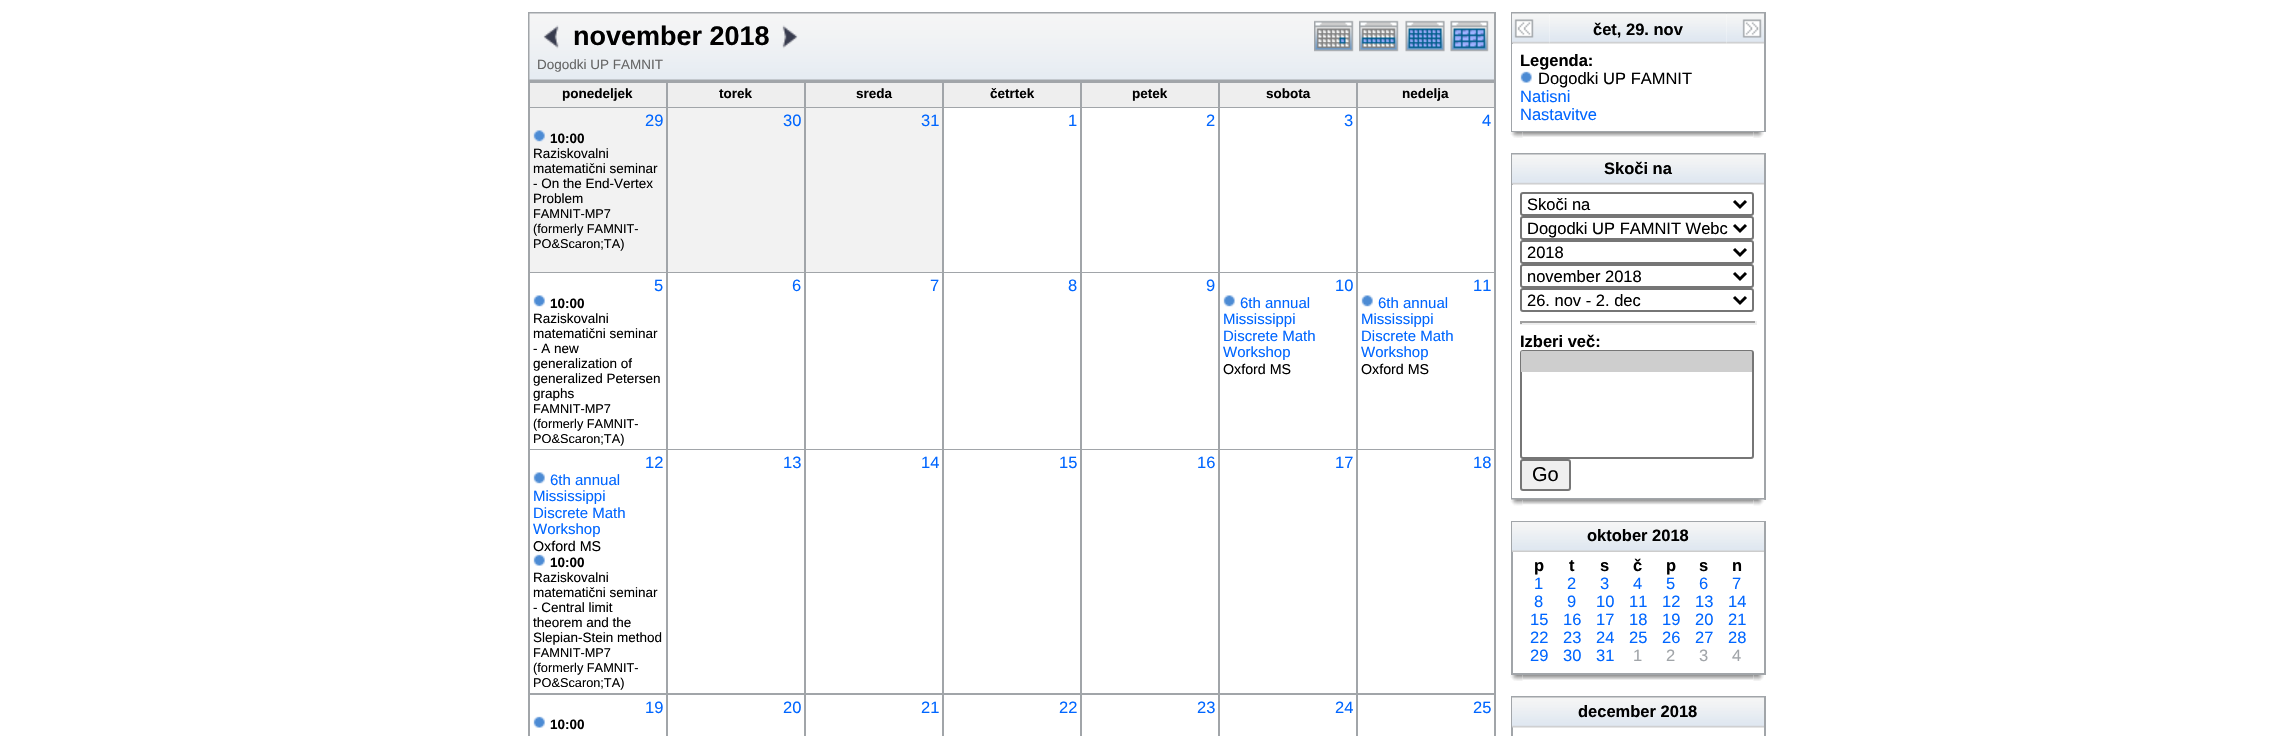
#include "include/core/SkBlurTypes.h"
#include "include/core/SkCanvas.h"
#include "include/core/SkData.h"
#include "include/core/SkFont.h"
#include "include/core/SkFontMgr.h"
#include "include/core/SkImage.h"
#include "include/core/SkMaskFilter.h"
#include "include/core/SkPaint.h"
#include "include/core/SkPathBuilder.h"
#include "include/core/SkTextBlob.h"
#include "include/effects/SkDashPathEffect.h"
#include "include/effects/SkGradientShader.h"
#include "include/utils/SkParsePath.h"

extern sk_sp<SkFontMgr> fontMgr;

static SkFont font(const char* family, int weight, float size, bool italic = false) {
    SkFontStyle style(weight, SkFontStyle::kNormal_Width,
        italic ? SkFontStyle::kItalic_Slant : SkFontStyle::kUpright_Slant);
    SkFont result(fontMgr->matchFamilyStyle(family, style), size);
    result.setSubpixel(true);
    return result;
}

static void drawLabel(SkCanvas* canvas, const char* s, float x, float y, const SkFont& font, SkColor color) {
    SkPaint ink(SkColor4f::FromColor(color));
    ink.setAntiAlias(true);
    canvas->drawString(s, x, y, font, ink);
}

static void fillRect(SkCanvas* canvas, float x, float y, float w, float h, SkColor color) {
    SkPaint ink(SkColor4f::FromColor(color));
    ink.setAntiAlias(true);
    canvas->drawRect(SkRect::MakeXYWH(x, y, w, h), ink);
}

static void drawPhoto(SkCanvas* canvas, const char* path, float x, float y, float w, float h) {
    auto image = SkImages::DeferredFromEncodedData(SkData::MakeFromFileName(path));
    canvas->drawImageRect(image, SkRect::MakeXYWH(x, y, w, h), SkSamplingOptions());
}

static SkPath parsePath(const char* data, bool evenOdd = false) {
    SkPath result = *SkParsePath::FromSVGString(data);
    if (evenOdd) result.setFillType(SkPathFillType::kEvenOdd);
    return result;
}

void draw(SkCanvas* canvas) {
    SkPaint paint;
    paint.setAntiAlias(true);
    canvas->clear(0xFFFFFFFF);
    paint.setStroke(true);
    paint.setStrokeWidth(2);
    paint.setColor(0xFFA1A5A9);
    canvas->drawRect(SkRect::MakeXYWH(529, 13, 966, 67), paint);
    drawPhoto(canvas, "assets/img1.png", 529, 13, 785, 67);
    drawPhoto(canvas, "assets/img2.png", 543, 25, 16, 24);
    SkFont font1 = font("Liberation Sans", 700, 27);
    drawLabel(canvas, "november 2018", 573, 45, font1, 0xFF000000);
    drawPhoto(canvas, "assets/img3.png", 782, 25, 16, 24);
    SkFont font2 = font("Liberation Sans", 400, 13.5f);
    drawLabel(canvas, "Dogodki UP FAMNIT", 537, 69, font2, 0xFF666666);
    drawPhoto(canvas, "assets/img4.png", 1314, 13, 180, 67);
    drawPhoto(canvas, "assets/img5.png", 1314, 20, 40, 32);
    drawPhoto(canvas, "assets/img6.png", 1359, 20, 40, 32);
    drawPhoto(canvas, "assets/img7.png", 1405, 20, 40, 32);
    drawPhoto(canvas, "assets/img8.png", 1450, 20, 39, 32);
    fillRect(canvas, 528, 81, 968, 655, 0xFFA1A5A9);
    fillRect(canvas, 530, 83, 136, 24, 0xFFEEEEEE);
    SkFont font3 = font("Liberation Sans", 700, 13.5f);
    drawLabel(canvas, "ponedeljek", 562, 98, font3, 0xFF000000);
    fillRect(canvas, 668, 83, 136, 24, 0xFFEEEEEE);
    drawLabel(canvas, "torek", 719, 98, font3, 0xFF000000);
    fillRect(canvas, 806, 83, 136, 24, 0xFFEEEEEE);
    drawLabel(canvas, "sreda", 856, 98, font3, 0xFF000000);
    fillRect(canvas, 944, 83, 136, 24, 0xFFEEEEEE);
    drawLabel(canvas, "četrtek", 990, 98, font3, 0xFF000000);
    fillRect(canvas, 1082, 83, 136, 24, 0xFFEEEEEE);
    drawLabel(canvas, "petek", 1132, 98, font3, 0xFF000000);
    fillRect(canvas, 1220, 83, 136, 24, 0xFFEEEEEE);
    drawLabel(canvas, "sobota", 1266, 98, font3, 0xFF000000);
    fillRect(canvas, 1358, 83, 136, 24, 0xFFEEEEEE);
    drawLabel(canvas, "nedelja", 1402, 98, font3, 0xFF000000);
    fillRect(canvas, 530, 108, 136, 164, 0xFFF2F2F2);
    SkFont font4 = font("Liberation Sans", 400, 16.5f);
    drawLabel(canvas, "29", 645, 126, font4, 0xFF0066FF);
    drawPhoto(canvas, "assets/img9.png", 533, 130, 12, 12);
    drawLabel(canvas, "10:00", 550, 143, font3, 0xFF000000);
    drawLabel(canvas, "Raziskovalni", 533, 158, font2, 0xFF000000);
    drawLabel(canvas, "matematični seminar", 533, 173, font2, 0xFF000000);
    drawLabel(canvas, "- On the End-Vertex", 533, 188, font2, 0xFF000000);
    drawLabel(canvas, "Problem", 533, 203, font2, 0xFF000000);
    SkFont font5 = font("Liberation Sans", 400, 12.75f);
    drawLabel(canvas, "FAMNIT-MP7", 533, 218, font5, 0xFF000000);
    drawLabel(canvas, "(formerly FAMNIT-", 533, 233, font5, 0xFF000000);
    drawLabel(canvas, "PO&Scaron;TA)", 533, 248, font5, 0xFF000000);
    fillRect(canvas, 668, 108, 136, 164, 0xFFF2F2F2);
    drawLabel(canvas, "30", 783, 126, font4, 0xFF0066FF);
    fillRect(canvas, 806, 108, 136, 164, 0xFFF2F2F2);
    drawLabel(canvas, "31", 921, 126, font4, 0xFF0066FF);
    fillRect(canvas, 944, 108, 136, 164, 0xFFFFFFFF);
    drawLabel(canvas, "1", 1068, 126, font4, 0xFF0066FF);
    fillRect(canvas, 1082, 108, 136, 164, 0xFFFFFFFF);
    drawLabel(canvas, "2", 1206, 126, font4, 0xFF0066FF);
    fillRect(canvas, 1220, 108, 136, 164, 0xFFFFFFFF);
    drawLabel(canvas, "3", 1344, 126, font4, 0xFF0066FF);
    fillRect(canvas, 1358, 108, 136, 164, 0xFFFFFFFF);
    drawLabel(canvas, "4", 1482, 126, font4, 0xFF0066FF);
    fillRect(canvas, 530, 273, 136, 176, 0xFFFFFFFF);
    drawLabel(canvas, "5", 654, 291, font4, 0xFF0066FF);
    drawPhoto(canvas, "assets/img10.png", 533, 295, 12, 12);
    drawLabel(canvas, "10:00", 550, 308, font3, 0xFF000000);
    drawLabel(canvas, "Raziskovalni", 533, 323, font2, 0xFF000000);
    drawLabel(canvas, "matematični seminar", 533, 338, font2, 0xFF000000);
    drawLabel(canvas, "- A new", 533, 353, font2, 0xFF000000);
    drawLabel(canvas, "generalization of", 533, 368, font2, 0xFF000000);
    drawLabel(canvas, "generalized Petersen", 533, 383, font2, 0xFF000000);
    drawLabel(canvas, "graphs", 533, 398, font2, 0xFF000000);
    drawLabel(canvas, "FAMNIT-MP7", 533, 413, font5, 0xFF000000);
    drawLabel(canvas, "(formerly FAMNIT-", 533, 428, font5, 0xFF000000);
    drawLabel(canvas, "PO&Scaron;TA)", 533, 443, font5, 0xFF000000);
    fillRect(canvas, 668, 273, 136, 176, 0xFFFFFFFF);
    drawLabel(canvas, "6", 792, 291, font4, 0xFF0066FF);
    fillRect(canvas, 806, 273, 136, 176, 0xFFFFFFFF);
    drawLabel(canvas, "7", 930, 291, font4, 0xFF0066FF);
    fillRect(canvas, 944, 273, 136, 176, 0xFFFFFFFF);
    drawLabel(canvas, "8", 1068, 291, font4, 0xFF0066FF);
    fillRect(canvas, 1082, 273, 136, 176, 0xFFFFFFFF);
    drawLabel(canvas, "9", 1206, 291, font4, 0xFF0066FF);
    fillRect(canvas, 1220, 273, 136, 176, 0xFFFFFFFF);
    drawLabel(canvas, "10", 1335, 291, font4, 0xFF0066FF);
    drawPhoto(canvas, "assets/img11.png", 1223, 295, 12, 12);
    SkFont font6 = font("Liberation Sans", 400, 15);
    drawLabel(canvas, "6th annual", 1240, 308, font6, 0xFF0066FF);
    drawLabel(canvas, "Mississippi", 1223, 324, font6, 0xFF0066FF);
    drawLabel(canvas, "Discrete Math", 1223, 341, font6, 0xFF0066FF);
    drawLabel(canvas, "Workshop", 1223, 357, font6, 0xFF0066FF);
    SkFont font7 = font("Liberation Sans", 400, 14.25f);
    drawLabel(canvas, "Oxford MS", 1223, 374, font7, 0xFF000000);
    fillRect(canvas, 1358, 273, 136, 176, 0xFFFFFFFF);
    drawLabel(canvas, "11", 1473, 291, font4, 0xFF0066FF);
    drawPhoto(canvas, "assets/img10.png", 1361, 295, 12, 12);
    drawLabel(canvas, "6th annual", 1378, 308, font6, 0xFF0066FF);
    drawLabel(canvas, "Mississippi", 1361, 324, font6, 0xFF0066FF);
    drawLabel(canvas, "Discrete Math", 1361, 341, font6, 0xFF0066FF);
    drawLabel(canvas, "Workshop", 1361, 357, font6, 0xFF0066FF);
    drawLabel(canvas, "Oxford MS", 1361, 374, font7, 0xFF000000);
    fillRect(canvas, 530, 450, 136, 243, 0xFFFFFFFF);
    drawLabel(canvas, "12", 645, 468, font4, 0xFF0066FF);
    drawPhoto(canvas, "assets/img10.png", 533, 472, 12, 12);
    drawLabel(canvas, "6th annual", 550, 485, font6, 0xFF0066FF);
    drawLabel(canvas, "Mississippi", 533, 501, font6, 0xFF0066FF);
    drawLabel(canvas, "Discrete Math", 533, 518, font6, 0xFF0066FF);
    drawLabel(canvas, "Workshop", 533, 534, font6, 0xFF0066FF);
    drawLabel(canvas, "Oxford MS", 533, 551, font7, 0xFF000000);
    drawPhoto(canvas, "assets/img12.png", 533, 554, 12, 12);
    drawLabel(canvas, "10:00", 550, 567, font3, 0xFF000000);
    drawLabel(canvas, "Raziskovalni", 533, 582, font2, 0xFF000000);
    drawLabel(canvas, "matematični seminar", 533, 597, font2, 0xFF000000);
    drawLabel(canvas, "- Central limit", 533, 612, font2, 0xFF000000);
    drawLabel(canvas, "theorem and the", 533, 627, font2, 0xFF000000);
    drawLabel(canvas, "Slepian-Stein method", 533, 642, font2, 0xFF000000);
    drawLabel(canvas, "FAMNIT-MP7", 533, 657, font5, 0xFF000000);
    drawLabel(canvas, "(formerly FAMNIT-", 533, 672, font5, 0xFF000000);
    drawLabel(canvas, "PO&Scaron;TA)", 533, 687, font5, 0xFF000000);
    fillRect(canvas, 668, 450, 136, 243, 0xFFFFFFFF);
    drawLabel(canvas, "13", 783, 468, font4, 0xFF0066FF);
    fillRect(canvas, 806, 450, 136, 243, 0xFFFFFFFF);
    drawLabel(canvas, "14", 921, 468, font4, 0xFF0066FF);
    fillRect(canvas, 944, 450, 136, 243, 0xFFFFFFFF);
    drawLabel(canvas, "15", 1059, 468, font4, 0xFF0066FF);
    fillRect(canvas, 1082, 450, 136, 243, 0xFFFFFFFF);
    drawLabel(canvas, "16", 1197, 468, font4, 0xFF0066FF);
    fillRect(canvas, 1220, 450, 136, 243, 0xFFFFFFFF);
    drawLabel(canvas, "17", 1335, 468, font4, 0xFF0066FF);
    fillRect(canvas, 1358, 450, 136, 243, 0xFFFFFFFF);
    drawLabel(canvas, "18", 1473, 468, font4, 0xFF0066FF);
    fillRect(canvas, 530, 695, 136, 41, 0xFFFFFFFF);
    drawLabel(canvas, "19", 645, 713, font4, 0xFF0066FF);
    drawPhoto(canvas, "assets/img12.png", 533, 716, 12, 12);
    drawLabel(canvas, "10:00", 550, 729, font3, 0xFF000000);
    fillRect(canvas, 668, 695, 136, 41, 0xFFFFFFFF);
    drawLabel(canvas, "20", 783, 713, font4, 0xFF0066FF);
    fillRect(canvas, 806, 695, 136, 41, 0xFFFFFFFF);
    drawLabel(canvas, "21", 921, 713, font4, 0xFF0066FF);
    fillRect(canvas, 944, 695, 136, 41, 0xFFFFFFFF);
    drawLabel(canvas, "22", 1059, 713, font4, 0xFF0066FF);
    fillRect(canvas, 1082, 695, 136, 41, 0xFFFFFFFF);
    drawLabel(canvas, "23", 1197, 713, font4, 0xFF0066FF);
    fillRect(canvas, 1220, 695, 136, 41, 0xFFFFFFFF);
    drawLabel(canvas, "24", 1335, 713, font4, 0xFF0066FF);
    fillRect(canvas, 1358, 695, 136, 41, 0xFFFFFFFF);
    drawLabel(canvas, "25", 1473, 713, font4, 0xFF0066FF);
    canvas->drawRect(SkRect::MakeXYWH(1512, 13, 253, 118), paint);
    drawPhoto(canvas, "assets/img13.png", 1512, 13, 38, 31);
    drawPhoto(canvas, "assets/img14.png", 1514, 19, 20, 19);
    drawPhoto(canvas, "assets/img15.png", 1549, 13, 178, 31);
    SkFont font8 = font("Liberation Sans", 700, 16.5f);
    drawLabel(canvas, "čet, 29. nov", 1593, 35, font8, 0xFF000000);
    drawPhoto(canvas, "assets/img16.png", 1726, 13, 38, 31);
    drawPhoto(canvas, "assets/img17.png", 1742, 19, 20, 19);
    fillRect(canvas, 1512, 44, 252, 87, 0xFFFFFFFF);
    drawLabel(canvas, "Legenda:", 1520, 66, font8, 0xFF000000);
    drawPhoto(canvas, "assets/img18.png", 1520, 71, 12, 12);
    drawLabel(canvas, "Dogodki UP FAMNIT", 1538, 84, font4, 0xFF000000);
    drawLabel(canvas, "Natisni", 1520, 102, font4, 0xFF0066FF);
    drawLabel(canvas, "Nastavitve", 1520, 120, font4, 0xFF0066FF);
    drawPhoto(canvas, "assets/img19.png", 1510, 132, 13, 6);
    drawPhoto(canvas, "assets/img20.png", 1522, 132, 232, 5);
    drawPhoto(canvas, "assets/img21.png", 1753, 132, 11, 6);
    canvas->drawRect(SkRect::MakeXYWH(1512, 154, 253, 345), paint);
    drawPhoto(canvas, "assets/img22.png", 1512, 154, 252, 31);
    drawLabel(canvas, "Skoči na", 1604, 174, font8, 0xFF000000);
    fillRect(canvas, 1512, 185, 1, 313, 0xFFFFFFFF);
    paint.setColor(0xFF767676);
    canvas->drawRoundRect(SkRect::MakeXYWH(1521, 193, 232, 22), 2, 2, paint);
    paint.setStrokeWidth(3);
    paint.setColor(0xFF000000);
    canvas->drawPath(parsePath("M1734 201L1740 207L1746 201"), paint);
    drawLabel(canvas, "Skoči na", 1527, 210, font4, 0xFF000000);
    paint.setStrokeWidth(2);
    paint.setColor(0xFF767676);
    canvas->drawRoundRect(SkRect::MakeXYWH(1521, 217, 232, 22), 2, 2, paint);
    paint.setStrokeWidth(3);
    paint.setColor(0xFF000000);
    canvas->drawPath(parsePath("M1734 225L1740 231L1746 225"), paint);
    drawLabel(canvas, "Dogodki UP FAMNIT Webc", 1527, 234, font4, 0xFF000000);
    paint.setStrokeWidth(2);
    paint.setColor(0xFF767676);
    canvas->drawRoundRect(SkRect::MakeXYWH(1521, 241, 232, 22), 2, 2, paint);
    paint.setStrokeWidth(3);
    paint.setColor(0xFF000000);
    canvas->drawPath(parsePath("M1734 249L1740 255L1746 249"), paint);
    drawLabel(canvas, "2018", 1527, 258, font4, 0xFF000000);
    paint.setStrokeWidth(2);
    paint.setColor(0xFF767676);
    canvas->drawRoundRect(SkRect::MakeXYWH(1521, 265, 232, 22), 2, 2, paint);
    paint.setStrokeWidth(3);
    paint.setColor(0xFF000000);
    canvas->drawPath(parsePath("M1734 273L1740 279L1746 273"), paint);
    drawLabel(canvas, "november 2018", 1527, 282, font4, 0xFF000000);
    paint.setStrokeWidth(2);
    paint.setColor(0xFF767676);
    canvas->drawRoundRect(SkRect::MakeXYWH(1521, 289, 232, 22), 2, 2, paint);
    paint.setStrokeWidth(3);
    paint.setColor(0xFF000000);
    canvas->drawPath(parsePath("M1734 297L1740 303L1746 297"), paint);
    drawLabel(canvas, "26. nov - 2. dec", 1527, 306, font4, 0xFF000000);
    fillRect(canvas, 1520, 321, 237, 2, 0xFF9F9F9F);
    fillRect(canvas, 1755, 321, 2, 3, 0xFFEEEEEE);
    fillRect(canvas, 1520, 323, 237, 2, 0xFFEEEEEE);
    fillRect(canvas, 1520, 321, 2, 3, 0xFF9F9F9F);
    drawLabel(canvas, "Izberi več:", 1520, 347, font8, 0xFF000000);
    paint.setStrokeWidth(2);
    paint.setColor(0xFF767676);
    canvas->drawRoundRect(SkRect::MakeXYWH(1521, 351, 232, 107), 2, 2, paint);
    paint.setStroke(false);
    paint.setColor(0xFFCECECE);
    canvas->drawPath(parsePath("M1522.5 351H1750.5C1751.5 351 1752 351.5 1752 352.5V372H1521V352.5C1521 351.5 1521.5 351 1522.5 351Z"), paint);
    paint.setColor(0xFFEFEFEF);
    canvas->drawRoundRect(SkRect::MakeXYWH(1521, 460, 49, 30), 2, 2, paint);
    paint.setStroke(true);
    paint.setColor(0xFF767676);
    canvas->drawRoundRect(SkRect::MakeXYWH(1521, 460, 49, 30), 2, 2, paint);
    SkFont font9 = font("Liberation Sans", 400, 20);
    drawLabel(canvas, "Go", 1532, 481, font9, 0xFF000000);
    drawPhoto(canvas, "assets/img23.png", 1510, 499, 13, 7);
    drawPhoto(canvas, "assets/img24.png", 1522, 499, 232, 6);
    drawPhoto(canvas, "assets/img25.png", 1753, 499, 12, 7);
    paint.setColor(0xFFA1A5A9);
    canvas->drawRect(SkRect::MakeXYWH(1512, 522, 253, 152), paint);
    drawPhoto(canvas, "assets/img26.png", 1512, 522, 252, 30);
    drawLabel(canvas, "oktober 2018", 1587, 541, font8, 0xFF000000);
    drawLabel(canvas, "p", 1534, 571, font8, 0xFF000000);
    drawLabel(canvas, "t", 1569, 571, font8, 0xFF000000);
    drawLabel(canvas, "s", 1600, 571, font8, 0xFF000000);
    drawLabel(canvas, "č", 1633, 571, font8, 0xFF000000);
    drawLabel(canvas, "p", 1666, 571, font8, 0xFF000000);
    drawLabel(canvas, "s", 1699, 571, font8, 0xFF000000);
    drawLabel(canvas, "n", 1732, 571, font8, 0xFF000000);
    drawLabel(canvas, "1", 1534, 589, font4, 0xFF0066FF);
    drawLabel(canvas, "2", 1567, 589, font4, 0xFF0066FF);
    drawLabel(canvas, "3", 1600, 589, font4, 0xFF0066FF);
    drawLabel(canvas, "4", 1633, 589, font4, 0xFF0066FF);
    drawLabel(canvas, "5", 1666, 589, font4, 0xFF0066FF);
    drawLabel(canvas, "6", 1699, 589, font4, 0xFF0066FF);
    drawLabel(canvas, "7", 1732, 589, font4, 0xFF0066FF);
    drawLabel(canvas, "8", 1534, 607, font4, 0xFF0066FF);
    drawLabel(canvas, "9", 1567, 607, font4, 0xFF0066FF);
    drawLabel(canvas, "10", 1596, 607, font4, 0xFF0066FF);
    drawLabel(canvas, "11", 1629, 607, font4, 0xFF0066FF);
    drawLabel(canvas, "12", 1662, 607, font4, 0xFF0066FF);
    drawLabel(canvas, "13", 1695, 607, font4, 0xFF0066FF);
    drawLabel(canvas, "14", 1728, 607, font4, 0xFF0066FF);
    drawLabel(canvas, "15", 1530, 625, font4, 0xFF0066FF);
    drawLabel(canvas, "16", 1563, 625, font4, 0xFF0066FF);
    drawLabel(canvas, "17", 1596, 625, font4, 0xFF0066FF);
    drawLabel(canvas, "18", 1629, 625, font4, 0xFF0066FF);
    drawLabel(canvas, "19", 1662, 625, font4, 0xFF0066FF);
    drawLabel(canvas, "20", 1695, 625, font4, 0xFF0066FF);
    drawLabel(canvas, "21", 1728, 625, font4, 0xFF0066FF);
    drawLabel(canvas, "22", 1530, 643, font4, 0xFF0066FF);
    drawLabel(canvas, "23", 1563, 643, font4, 0xFF0066FF);
    drawLabel(canvas, "24", 1596, 643, font4, 0xFF0066FF);
    drawLabel(canvas, "25", 1629, 643, font4, 0xFF0066FF);
    drawLabel(canvas, "26", 1662, 643, font4, 0xFF0066FF);
    drawLabel(canvas, "27", 1695, 643, font4, 0xFF0066FF);
    drawLabel(canvas, "28", 1728, 643, font4, 0xFF0066FF);
    drawLabel(canvas, "29", 1530, 661, font4, 0xFF0066FF);
    drawLabel(canvas, "30", 1563, 661, font4, 0xFF0066FF);
    drawLabel(canvas, "31", 1596, 661, font4, 0xFF0066FF);
    drawLabel(canvas, "1", 1633, 661, font4, 0xFFA1A5A9);
    drawLabel(canvas, "2", 1666, 661, font4, 0xFFA1A5A9);
    drawLabel(canvas, "3", 1699, 661, font4, 0xFFA1A5A9);
    drawLabel(canvas, "4", 1732, 661, font4, 0xFFA1A5A9);
    drawPhoto(canvas, "assets/img19.png", 1510, 675, 13, 6);
    drawPhoto(canvas, "assets/img20.png", 1522, 675, 232, 5);
    drawPhoto(canvas, "assets/img21.png", 1753, 675, 11, 6);
    canvas->drawRect(SkRect::MakeXYWH(1512, 697, 253, 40), paint);
    drawPhoto(canvas, "assets/img27.png", 1512, 697, 252, 31);
    drawLabel(canvas, "december 2018", 1578, 717, font8, 0xFF000000);
}
